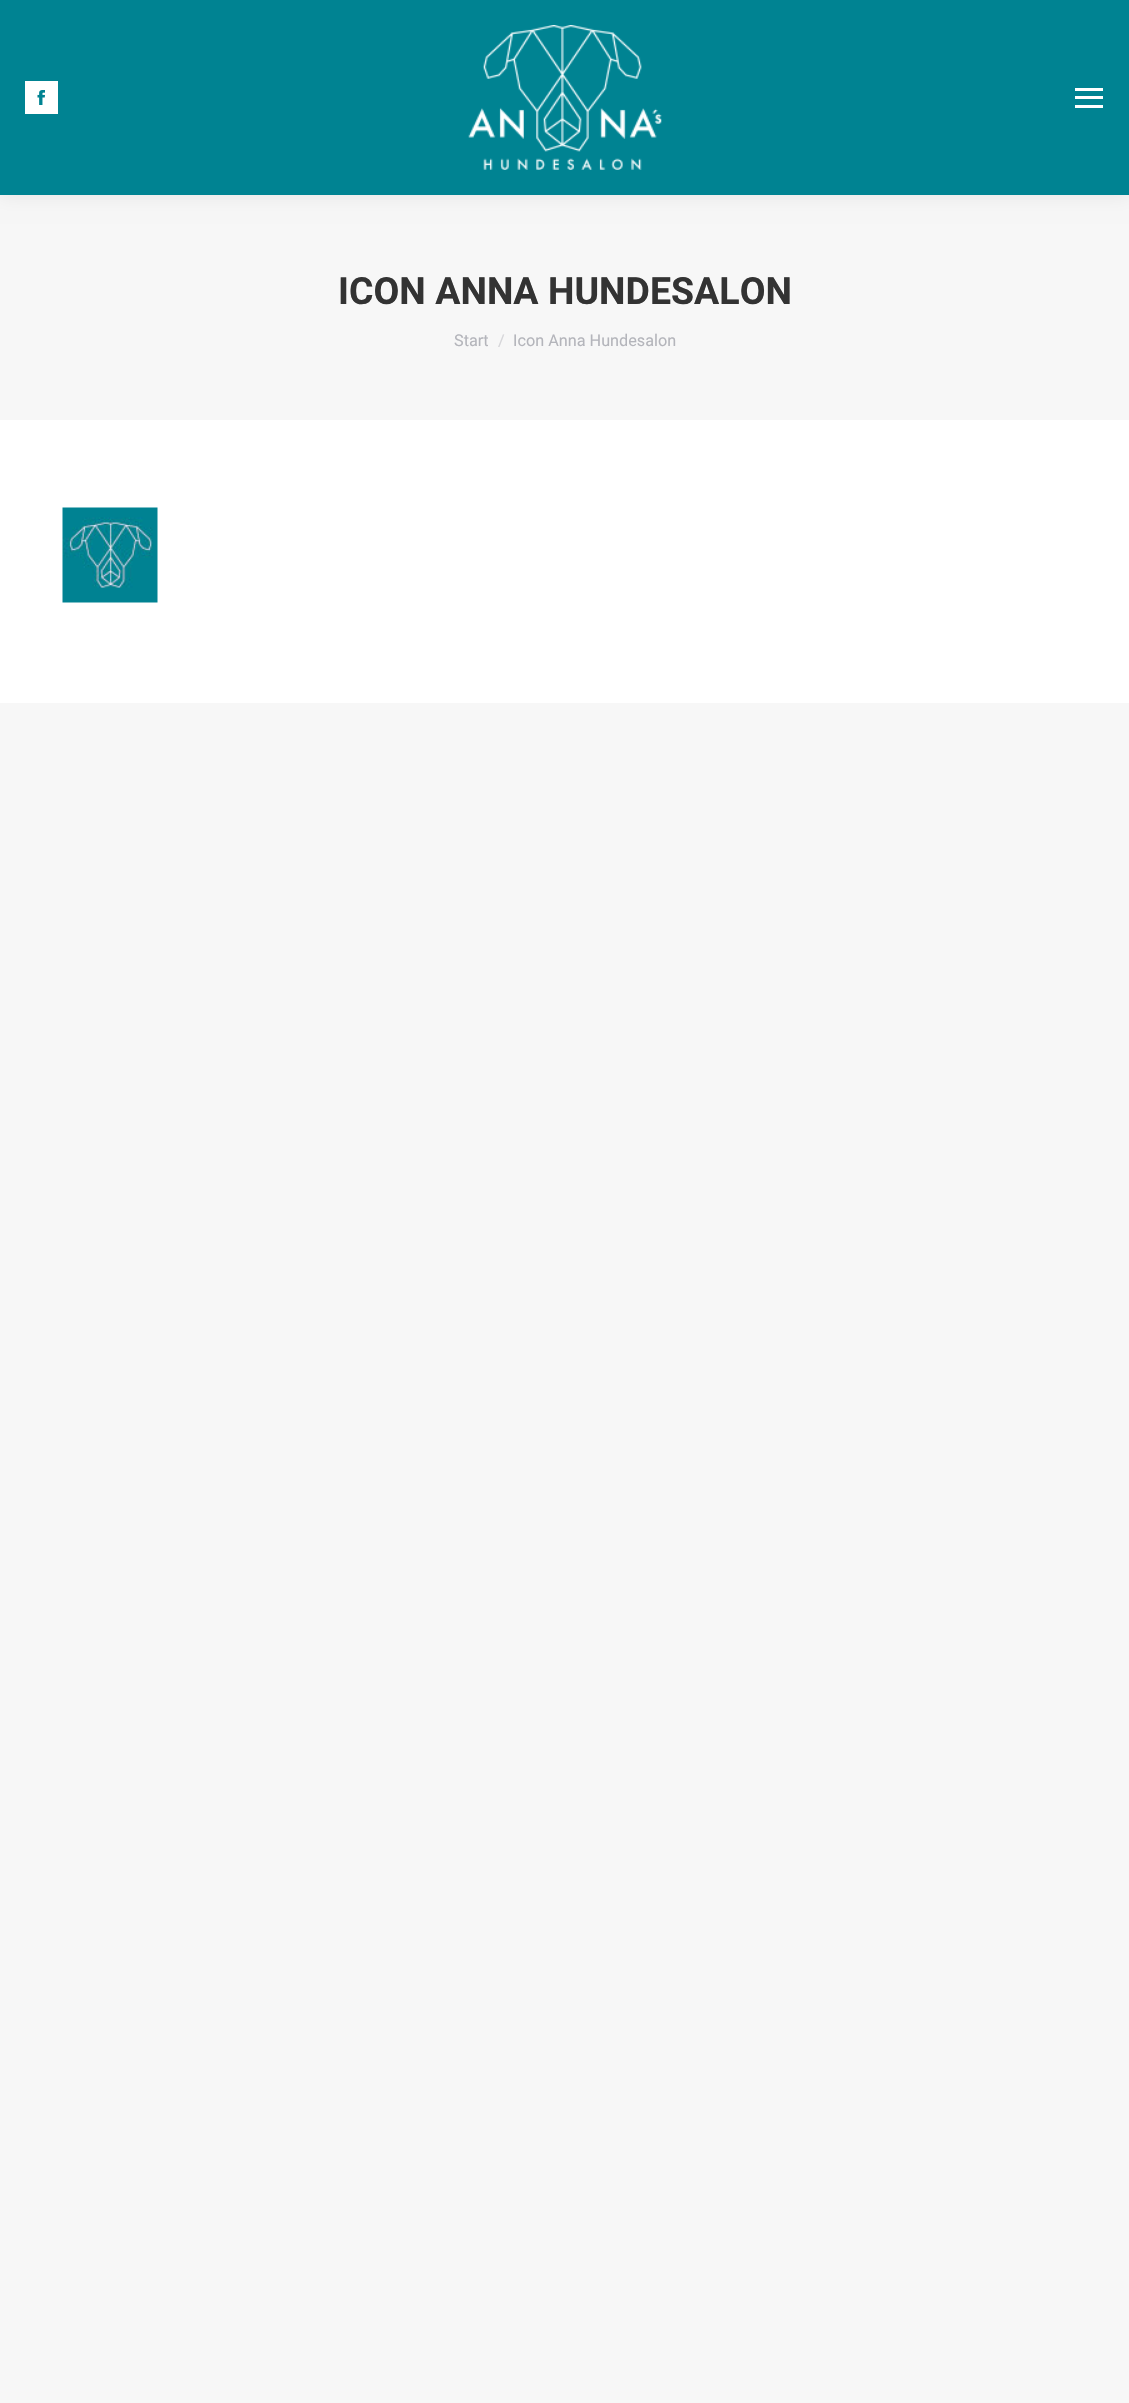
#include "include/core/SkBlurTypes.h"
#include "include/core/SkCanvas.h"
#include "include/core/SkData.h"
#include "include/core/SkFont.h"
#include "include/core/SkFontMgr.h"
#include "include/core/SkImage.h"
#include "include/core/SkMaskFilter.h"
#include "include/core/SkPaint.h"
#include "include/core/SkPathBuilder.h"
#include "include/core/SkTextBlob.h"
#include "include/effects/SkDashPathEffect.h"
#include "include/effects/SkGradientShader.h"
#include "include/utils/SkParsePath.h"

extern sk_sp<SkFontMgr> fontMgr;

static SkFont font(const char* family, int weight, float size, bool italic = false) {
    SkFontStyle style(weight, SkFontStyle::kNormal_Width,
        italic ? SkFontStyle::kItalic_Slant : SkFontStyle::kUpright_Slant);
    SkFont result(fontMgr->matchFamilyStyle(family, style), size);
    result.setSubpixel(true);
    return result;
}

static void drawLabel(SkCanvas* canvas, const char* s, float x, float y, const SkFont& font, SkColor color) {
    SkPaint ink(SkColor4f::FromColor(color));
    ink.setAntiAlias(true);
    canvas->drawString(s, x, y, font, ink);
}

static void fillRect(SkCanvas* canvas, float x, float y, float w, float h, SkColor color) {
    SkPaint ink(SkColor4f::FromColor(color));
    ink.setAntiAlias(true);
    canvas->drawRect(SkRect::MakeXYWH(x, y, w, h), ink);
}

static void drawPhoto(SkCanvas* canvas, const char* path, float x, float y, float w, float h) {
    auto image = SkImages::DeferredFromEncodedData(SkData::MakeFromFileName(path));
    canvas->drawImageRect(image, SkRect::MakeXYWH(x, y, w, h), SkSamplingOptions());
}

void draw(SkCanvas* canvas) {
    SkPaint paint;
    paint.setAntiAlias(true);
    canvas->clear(0xFFF7F7F7);
    fillRect(canvas, 0, 420, 1129, 283, 0xFFFFFFFF);
    paint.setColor(0x12000000);
    paint.setMaskFilter(SkMaskFilter::MakeBlur(kNormal_SkBlurStyle, 9.5f));
    canvas->drawRect(SkRect::MakeXYWH(-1, -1, 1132, 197), paint);
    paint.setMaskFilter(nullptr);
    fillRect(canvas, 0, 0, 1129, 195, 0xFF008392);
    fillRect(canvas, 25, 81, 33, 33, 0xFFFFFFFF);
    drawPhoto(canvas, "assets/img1.png", 37, 90, 8, 15);
    drawPhoto(canvas, "assets/img2.png", 468, 25, 194, 145);
    fillRect(canvas, 1075, 88, 28, 3, 0xFFFFFFFF);
    fillRect(canvas, 1075, 96, 28, 3, 0xFFFFFFFF);
    fillRect(canvas, 1075, 105, 28, 3, 0xFFFFFFFF);
    SkFont font1 = font("Roboto", 700, 37.5f);
    drawLabel(canvas, "ICON ANNA HUNDESALON", 338, 304, font1, 0xFF333333);
    SkFont font2 = font("Roboto", 400, 16.25f);
    drawLabel(canvas, "Start", 454, 346, font2, 0xFFB4B5BB);
    drawLabel(canvas, "/", 498, 346, font2, 0xFFD6D6D9);
    drawLabel(canvas, "Icon Anna Hundesalon", 513, 346, font2, 0xFFB4B5BB);
    drawPhoto(canvas, "assets/img3.png", 62, 507, 96, 96);
}
